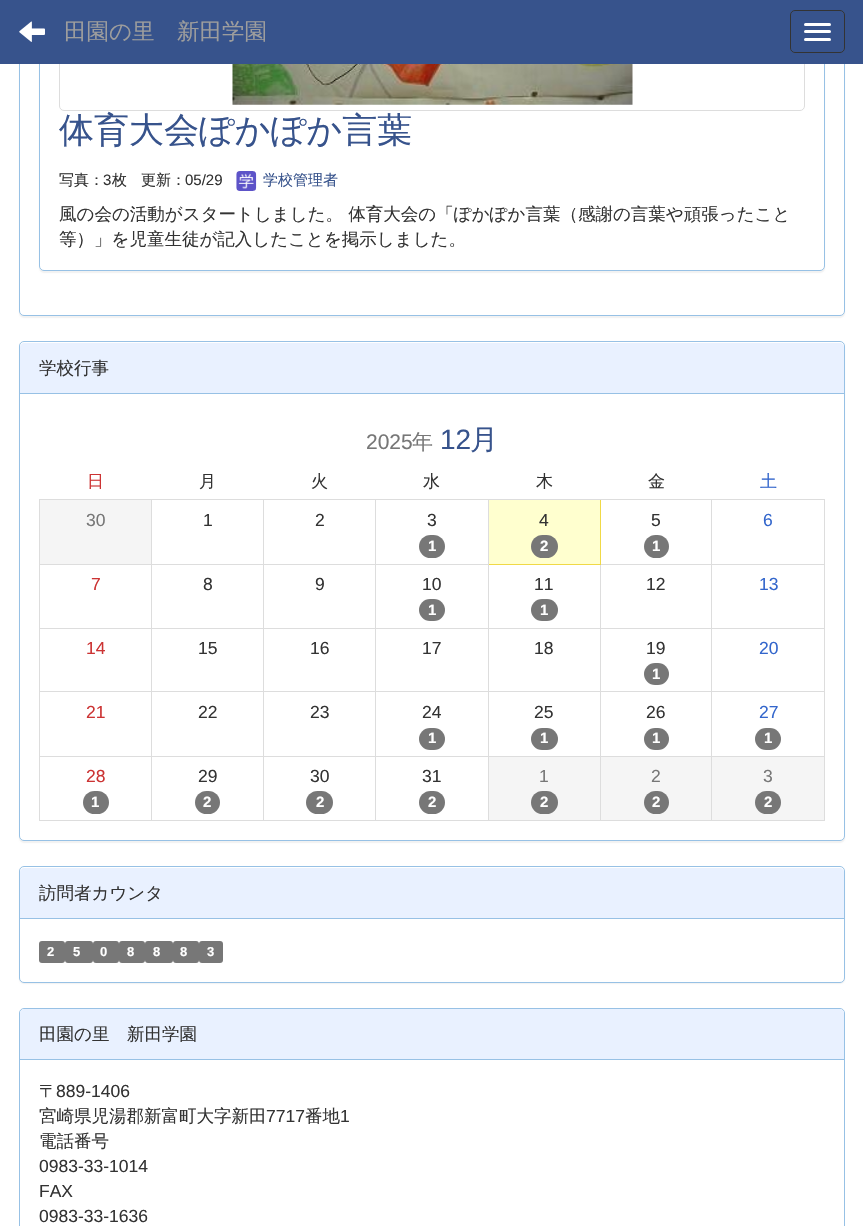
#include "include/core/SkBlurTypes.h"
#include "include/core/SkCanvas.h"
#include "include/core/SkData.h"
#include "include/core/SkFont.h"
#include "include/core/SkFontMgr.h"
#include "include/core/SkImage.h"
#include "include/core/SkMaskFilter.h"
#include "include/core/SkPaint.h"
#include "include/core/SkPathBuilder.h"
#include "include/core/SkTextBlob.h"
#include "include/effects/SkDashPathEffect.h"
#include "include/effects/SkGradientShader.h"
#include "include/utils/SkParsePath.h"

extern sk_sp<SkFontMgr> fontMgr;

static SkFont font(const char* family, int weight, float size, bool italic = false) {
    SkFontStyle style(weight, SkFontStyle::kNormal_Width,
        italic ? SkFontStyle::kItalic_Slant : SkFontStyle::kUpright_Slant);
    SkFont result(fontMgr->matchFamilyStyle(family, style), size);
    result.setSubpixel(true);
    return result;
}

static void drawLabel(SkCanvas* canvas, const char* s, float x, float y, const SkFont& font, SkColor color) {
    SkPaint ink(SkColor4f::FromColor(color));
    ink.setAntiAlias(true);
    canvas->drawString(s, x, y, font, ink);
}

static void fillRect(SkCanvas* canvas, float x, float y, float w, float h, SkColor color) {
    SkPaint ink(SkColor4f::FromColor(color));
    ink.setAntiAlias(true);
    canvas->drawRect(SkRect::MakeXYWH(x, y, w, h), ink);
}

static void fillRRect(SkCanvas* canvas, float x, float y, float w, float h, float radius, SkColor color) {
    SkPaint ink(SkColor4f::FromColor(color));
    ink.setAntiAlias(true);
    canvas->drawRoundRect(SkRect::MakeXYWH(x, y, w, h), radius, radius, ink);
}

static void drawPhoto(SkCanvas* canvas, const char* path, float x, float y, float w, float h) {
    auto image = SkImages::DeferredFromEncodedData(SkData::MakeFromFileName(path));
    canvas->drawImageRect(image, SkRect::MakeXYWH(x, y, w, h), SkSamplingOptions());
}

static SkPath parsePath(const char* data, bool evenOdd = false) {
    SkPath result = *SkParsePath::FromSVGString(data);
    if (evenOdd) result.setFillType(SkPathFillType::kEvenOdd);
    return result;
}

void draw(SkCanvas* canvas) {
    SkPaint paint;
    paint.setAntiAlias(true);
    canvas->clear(0xFFFFFFFF);
    paint.setColor(0x0D000000);
    paint.setMaskFilter(SkMaskFilter::MakeBlur(kNormal_SkBlurStyle, 0.5f));
    canvas->drawRoundRect(SkRect::MakeXYWH(19, -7, 826, 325), 5, 5, paint);
    paint.setMaskFilter(nullptr);
    paint.setColor(0xFFFFFFFF);
    canvas->drawRoundRect(SkRect::MakeXYWH(19.5f, -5.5f, 825, 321), 4.5f, 4.5f, paint);
    paint.setStroke(true);
    paint.setStrokeWidth(1);
    paint.setColor(0xFF97C1E5);
    canvas->drawRoundRect(SkRect::MakeXYWH(19.5f, -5.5f, 825, 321), 4.5f, 4.5f, paint);
    paint.setStroke(false);
    paint.setColor(0x0D000000);
    paint.setMaskFilter(SkMaskFilter::MakeBlur(kNormal_SkBlurStyle, 0.5f));
    canvas->drawRoundRect(SkRect::MakeXYWH(39, -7, 786, 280), 5, 5, paint);
    paint.setMaskFilter(nullptr);
    paint.setColor(0xFFFFFFFF);
    canvas->drawRoundRect(SkRect::MakeXYWH(39.5f, -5.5f, 785, 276), 4.5f, 4.5f, paint);
    paint.setStroke(true);
    paint.setColor(0xFF97C1E5);
    canvas->drawRoundRect(SkRect::MakeXYWH(39.5f, -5.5f, 785, 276), 4.5f, 4.5f, paint);
    paint.setColor(0xFFDDDDDD);
    canvas->drawRoundRect(SkRect::MakeXYWH(59.5f, -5.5f, 745, 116), 4.5f, 4.5f, paint);
    fillRect(canvas, 0, 0, 863, 64, 0xFF37538C);
    drawPhoto(canvas, "assets/img1.png", 19, 21, 26, 21);
    SkFont font1 = font("WenQuanYi Zen Hei", 500, 22.5f);
    drawLabel(canvas, "田園の里　新田学園", 64, 39, font1, 0xFF9D9D9D);
    paint.setColor(0xFF333333);
    canvas->drawRoundRect(SkRect::MakeXYWH(790.5f, 10.5f, 54, 42), 4.5f, 4.5f, paint);
    fillRRect(canvas, 804, 23, 27, 3, 1.5f, 0xFFFFFFFF);
    fillRRect(canvas, 804, 30, 27, 3, 1.5f, 0xFFFFFFFF);
    fillRRect(canvas, 804, 38, 27, 3, 1.5f, 0xFFFFFFFF);
    drawPhoto(canvas, "assets/img2.png", 232, 64, 401, 41);
    SkFont font2 = font("WenQuanYi Zen Hei", 500, 35);
    drawLabel(canvas, "体育大会ぽかぽか言葉", 59, 142, font2, 0xFF37538C);
    SkFont font3 = font("WenQuanYi Zen Hei", 500, 15);
    drawLabel(canvas, "写真：", 59, 185, font3, 0xFF333333);
    SkFont font4 = font("Liberation Sans", 400, 15);
    drawLabel(canvas, "3", 103, 185, font4, 0xFF333333);
    drawLabel(canvas, "枚", 112, 185, font3, 0xFF333333);
    drawLabel(canvas, "更新：", 141, 185, font3, 0xFF333333);
    drawLabel(canvas, "05/29", 185, 185, font4, 0xFF333333);
    drawPhoto(canvas, "assets/img3.png", 236, 171, 21, 20);
    drawLabel(canvas, "学校管理者", 263, 185, font3, 0xFF37538C);
    SkFont font5 = font("WenQuanYi Zen Hei", 500, 17.5f);
    drawLabel(canvas, "風の会の活動がスタートしました。 体育大会の「ぽかぽか言葉（感謝の言葉や頑張ったこと", 59, 220, font5, 0xFF333333);
    drawLabel(canvas, "等）」を児童生徒が記入したことを掲示しました。", 59, 245, font5, 0xFF333333);
    paint.setStroke(false);
    paint.setColor(0x0D000000);
    paint.setMaskFilter(SkMaskFilter::MakeBlur(kNormal_SkBlurStyle, 0.5f));
    canvas->drawRoundRect(SkRect::MakeXYWH(19, 343, 826, 500), 5, 5, paint);
    paint.setMaskFilter(nullptr);
    paint.setColor(0xFFFFFFFF);
    canvas->drawRoundRect(SkRect::MakeXYWH(19.5f, 341.5f, 825, 499), 4.5f, 4.5f, paint);
    paint.setStroke(true);
    paint.setColor(0xFF97C1E5);
    canvas->drawRoundRect(SkRect::MakeXYWH(19.5f, 341.5f, 825, 499), 4.5f, 4.5f, paint);
    paint.setStroke(false);
    paint.setColor(0xFFE9F1FF);
    canvas->drawPath(parsePath("M24 343H840C842 343 844 345 844 347V394H20V347C20 345 22 343 24 343Z"), paint);
    fillRect(canvas, 20, 393, 824, 1, 0xFF97C1E5);
    drawLabel(canvas, "学校行事", 39, 374, font5, 0xFF333333);
    SkFont font6 = font("Liberation Sans", 400, 21);
    drawLabel(canvas, "2025", 366, 449, font6, 0xFF777777);
    SkFont font7 = font("WenQuanYi Zen Hei", 500, 21);
    drawLabel(canvas, "年", 412, 449, font7, 0xFF777777);
    SkFont font8 = font("Liberation Sans", 400, 28);
    drawLabel(canvas, "12", 440, 449, font8, 0xFF37538C);
    SkFont font9 = font("WenQuanYi Zen Hei", 500, 28);
    drawLabel(canvas, "月", 470, 449, font9, 0xFF37538C);
    SkFont font10 = font("WenQuanYi Zen Hei", 500, 17);
    drawLabel(canvas, "日", 87, 487, font10, 0xFFCC3333);
    drawLabel(canvas, "月", 199, 487, font10, 0xFF333333);
    drawLabel(canvas, "火", 311, 487, font10, 0xFF333333);
    drawLabel(canvas, "水", 423, 487, font10, 0xFF333333);
    drawLabel(canvas, "木", 536, 487, font10, 0xFF333333);
    fillRect(canvas, 375, 499, 114, 1, 0xFFDDDDDD);
    fillRect(canvas, 711, 564, 114, 1, 0xFFDDDDDD);
    fillRect(canvas, 711, 628, 114, 1, 0xFFDDDDDD);
    fillRect(canvas, 711, 691, 114, 1, 0xFFDDDDDD);
    fillRect(canvas, 601, 757, 223, 63, 0xFFF5F5F5);
    fillRect(canvas, 711, 756, 114, 1, 0xFFDDDDDD);
    fillRect(canvas, 824, 756, 1, 65, 0xFFDDDDDD);
    fillRect(canvas, 711, 820, 114, 1, 0xFFDDDDDD);
    fillRect(canvas, 711, 756, 1, 65, 0xFFDDDDDD);
    fillRect(canvas, 600, 756, 113, 1, 0xFFDDDDDD);
    fillRect(canvas, 711, 691, 1, 67, 0xFFDDDDDD);
    fillRect(canvas, 600, 691, 113, 1, 0xFFDDDDDD);
    fillRect(canvas, 711, 628, 1, 65, 0xFFDDDDDD);
    fillRect(canvas, 600, 628, 113, 1, 0xFFDDDDDD);
    fillRect(canvas, 711, 564, 1, 65, 0xFFDDDDDD);
    fillRect(canvas, 600, 564, 113, 1, 0xFFDDDDDD);
    fillRect(canvas, 600, 820, 113, 1, 0xFFDDDDDD);
    fillRect(canvas, 600, 756, 1, 65, 0xFFDDDDDD);
    fillRect(canvas, 488, 756, 113, 1, 0xFFDDDDDD);
    fillRect(canvas, 600, 691, 1, 67, 0xFFDDDDDD);
    fillRect(canvas, 488, 691, 113, 1, 0xFFDDDDDD);
    fillRect(canvas, 600, 628, 1, 65, 0xFFDDDDDD);
    fillRect(canvas, 488, 628, 113, 1, 0xFFDDDDDD);
    fillRect(canvas, 600, 564, 1, 65, 0xFFDDDDDD);
    fillRect(canvas, 600, 499, 1, 66, 0xFFF0D946);
    fillRect(canvas, 488, 820, 113, 1, 0xFFDDDDDD);
    fillRect(canvas, 488, 756, 1, 65, 0xFFDDDDDD);
    fillRect(canvas, 375, 756, 114, 1, 0xFFDDDDDD);
    fillRect(canvas, 488, 691, 1, 67, 0xFFDDDDDD);
    fillRect(canvas, 375, 691, 114, 1, 0xFFDDDDDD);
    fillRect(canvas, 488, 628, 1, 65, 0xFFDDDDDD);
    fillRect(canvas, 375, 628, 114, 1, 0xFFDDDDDD);
    fillRect(canvas, 488, 564, 1, 65, 0xFFDDDDDD);
    fillRect(canvas, 375, 564, 114, 1, 0xFFDDDDDD);
    fillRect(canvas, 488, 564, 113, 1, 0xFFF0D946);
    fillRect(canvas, 488, 499, 1, 66, 0xFFDDDDDD);
    fillRect(canvas, 711, 499, 114, 1, 0xFFDDDDDD);
    fillRect(canvas, 711, 499, 1, 66, 0xFFDDDDDD);
    fillRect(canvas, 488, 499, 225, 1, 0xFFDDDDDD);
    drawLabel(canvas, "金", 648, 487, font10, 0xFF333333);
    drawLabel(canvas, "土", 760, 487, font10, 0xFF3366CC);
    fillRect(canvas, 40, 500, 111, 64, 0xFFF5F5F5);
    fillRect(canvas, 375, 820, 114, 1, 0xFFDDDDDD);
    fillRect(canvas, 375, 756, 1, 65, 0xFFDDDDDD);
    fillRect(canvas, 263, 756, 113, 1, 0xFFDDDDDD);
    fillRect(canvas, 375, 691, 1, 67, 0xFFDDDDDD);
    fillRect(canvas, 263, 691, 113, 1, 0xFFDDDDDD);
    fillRect(canvas, 375, 628, 1, 65, 0xFFDDDDDD);
    fillRect(canvas, 263, 628, 113, 1, 0xFFDDDDDD);
    fillRect(canvas, 375, 564, 1, 65, 0xFFDDDDDD);
    fillRect(canvas, 263, 564, 113, 1, 0xFFDDDDDD);
    fillRect(canvas, 375, 499, 1, 66, 0xFFDDDDDD);
    fillRect(canvas, 263, 499, 113, 1, 0xFFDDDDDD);
    fillRect(canvas, 263, 820, 113, 1, 0xFFDDDDDD);
    fillRect(canvas, 263, 756, 1, 65, 0xFFDDDDDD);
    fillRect(canvas, 151, 756, 113, 1, 0xFFDDDDDD);
    fillRect(canvas, 263, 691, 1, 67, 0xFFDDDDDD);
    fillRect(canvas, 151, 691, 113, 1, 0xFFDDDDDD);
    fillRect(canvas, 263, 628, 1, 65, 0xFFDDDDDD);
    fillRect(canvas, 151, 628, 113, 1, 0xFFDDDDDD);
    fillRect(canvas, 263, 564, 1, 65, 0xFFDDDDDD);
    fillRect(canvas, 151, 564, 113, 1, 0xFFDDDDDD);
    fillRect(canvas, 263, 499, 1, 66, 0xFFDDDDDD);
    fillRect(canvas, 151, 499, 113, 1, 0xFFDDDDDD);
    fillRect(canvas, 151, 820, 113, 1, 0xFFDDDDDD);
    fillRect(canvas, 151, 756, 1, 65, 0xFFDDDDDD);
    fillRect(canvas, 39, 756, 114, 1, 0xFFDDDDDD);
    fillRect(canvas, 151, 691, 1, 67, 0xFFDDDDDD);
    fillRect(canvas, 39, 691, 114, 1, 0xFFDDDDDD);
    fillRect(canvas, 151, 628, 1, 65, 0xFFDDDDDD);
    fillRect(canvas, 39, 628, 114, 1, 0xFFDDDDDD);
    fillRect(canvas, 151, 564, 1, 65, 0xFFDDDDDD);
    fillRect(canvas, 39, 564, 114, 1, 0xFFDDDDDD);
    fillRect(canvas, 151, 499, 1, 66, 0xFFDDDDDD);
    fillRect(canvas, 39, 499, 114, 1, 0xFFDDDDDD);
    fillRect(canvas, 39, 820, 114, 1, 0xFFDDDDDD);
    fillRect(canvas, 39, 756, 1, 65, 0xFFDDDDDD);
    fillRect(canvas, 39, 691, 1, 67, 0xFFDDDDDD);
    fillRect(canvas, 39, 628, 1, 65, 0xFFDDDDDD);
    fillRect(canvas, 39, 564, 1, 65, 0xFFDDDDDD);
    fillRect(canvas, 39, 499, 1, 66, 0xFFDDDDDD);
    SkFont font11 = font("Liberation Sans", 400, 17.5f);
    drawLabel(canvas, "30", 86, 526, font11, 0xFF777777);
    drawLabel(canvas, "1", 203, 526, font11, 0xFF333333);
    drawLabel(canvas, "2", 315, 526, font11, 0xFF333333);
    drawLabel(canvas, "3", 427, 526, font11, 0xFF333333);
    fillRRect(canvas, 419, 535, 26, 23, 11.5f, 0xFF777777);
    SkFont font12 = font("Liberation Sans", 700, 15);
    drawLabel(canvas, "1", 428, 551, font12, 0xFFFFFFFF);
    fillRect(canvas, 489, 500, 111, 64, 0xFFFFFFCF);
    drawLabel(canvas, "4", 539, 526, font11, 0xFF333333);
    fillRRect(canvas, 531, 535, 27, 23, 11.5f, 0xFF777777);
    drawLabel(canvas, "2", 540, 551, font12, 0xFFFFFFFF);
    drawLabel(canvas, "5", 651, 526, font11, 0xFF333333);
    fillRRect(canvas, 644, 535, 25, 23, 11.5f, 0xFF777777);
    drawLabel(canvas, "1", 652, 551, font12, 0xFFFFFFFF);
    fillRect(canvas, 824, 691, 1, 67, 0xFFDDDDDD);
    fillRect(canvas, 824, 628, 1, 65, 0xFFDDDDDD);
    fillRect(canvas, 824, 564, 1, 65, 0xFFDDDDDD);
    fillRect(canvas, 824, 499, 1, 66, 0xFFDDDDDD);
    drawLabel(canvas, "6", 763, 526, font11, 0xFF3366CC);
    drawLabel(canvas, "7", 91, 590, font11, 0xFFCC3333);
    drawLabel(canvas, "8", 203, 590, font11, 0xFF333333);
    drawLabel(canvas, "9", 315, 590, font11, 0xFF333333);
    drawLabel(canvas, "10", 422, 590, font11, 0xFF333333);
    fillRRect(canvas, 419, 599, 26, 22, 11, 0xFF777777);
    drawLabel(canvas, "1", 428, 615, font12, 0xFFFFFFFF);
    drawLabel(canvas, "11", 534, 590, font11, 0xFF333333);
    fillRRect(canvas, 531, 599, 27, 22, 11, 0xFF777777);
    drawLabel(canvas, "1", 540, 615, font12, 0xFFFFFFFF);
    drawLabel(canvas, "12", 646, 590, font11, 0xFF333333);
    drawLabel(canvas, "13", 759, 590, font11, 0xFF3366CC);
    drawLabel(canvas, "14", 86, 654, font11, 0xFFCC3333);
    drawLabel(canvas, "15", 198, 654, font11, 0xFF333333);
    drawLabel(canvas, "16", 310, 654, font11, 0xFF333333);
    drawLabel(canvas, "17", 422, 654, font11, 0xFF333333);
    drawLabel(canvas, "18", 534, 654, font11, 0xFF333333);
    drawLabel(canvas, "19", 646, 654, font11, 0xFF333333);
    fillRRect(canvas, 644, 663, 25, 22, 11, 0xFF777777);
    drawLabel(canvas, "1", 652, 679, font12, 0xFFFFFFFF);
    drawLabel(canvas, "20", 759, 654, font11, 0xFF3366CC);
    drawLabel(canvas, "21", 86, 718, font11, 0xFFCC3333);
    drawLabel(canvas, "22", 198, 718, font11, 0xFF333333);
    drawLabel(canvas, "23", 310, 718, font11, 0xFF333333);
    drawLabel(canvas, "24", 422, 718, font11, 0xFF333333);
    fillRRect(canvas, 419, 728, 26, 22, 11, 0xFF777777);
    drawLabel(canvas, "1", 428, 743, font12, 0xFFFFFFFF);
    drawLabel(canvas, "25", 534, 718, font11, 0xFF333333);
    fillRRect(canvas, 531, 728, 27, 22, 11, 0xFF777777);
    drawLabel(canvas, "1", 540, 743, font12, 0xFFFFFFFF);
    drawLabel(canvas, "26", 646, 718, font11, 0xFF333333);
    fillRRect(canvas, 644, 728, 25, 22, 11, 0xFF777777);
    drawLabel(canvas, "1", 652, 743, font12, 0xFFFFFFFF);
    drawLabel(canvas, "27", 759, 718, font11, 0xFF3366CC);
    fillRRect(canvas, 755, 728, 26, 22, 11, 0xFF777777);
    drawLabel(canvas, "1", 764, 743, font12, 0xFFFFFFFF);
    drawLabel(canvas, "28", 86, 782, font11, 0xFFCC3333);
    fillRRect(canvas, 83, 791, 26, 23, 11.5f, 0xFF777777);
    drawLabel(canvas, "1", 91, 807, font12, 0xFFFFFFFF);
    drawLabel(canvas, "29", 198, 782, font11, 0xFF333333);
    fillRRect(canvas, 195, 791, 25, 23, 11.5f, 0xFF777777);
    drawLabel(canvas, "2", 203, 807, font12, 0xFFFFFFFF);
    drawLabel(canvas, "30", 310, 782, font11, 0xFF333333);
    fillRRect(canvas, 306, 791, 27, 23, 11.5f, 0xFF777777);
    drawLabel(canvas, "2", 316, 807, font12, 0xFFFFFFFF);
    drawLabel(canvas, "31", 422, 782, font11, 0xFF333333);
    fillRRect(canvas, 419, 791, 26, 23, 11.5f, 0xFF777777);
    drawLabel(canvas, "2", 428, 807, font12, 0xFFFFFFFF);
    fillRect(canvas, 489, 757, 111, 63, 0xFFF5F5F5);
    drawLabel(canvas, "1", 539, 782, font11, 0xFF777777);
    fillRRect(canvas, 531, 791, 27, 23, 11.5f, 0xFF777777);
    drawLabel(canvas, "2", 540, 807, font12, 0xFFFFFFFF);
    drawLabel(canvas, "2", 651, 782, font11, 0xFF777777);
    fillRRect(canvas, 644, 791, 25, 23, 11.5f, 0xFF777777);
    drawLabel(canvas, "2", 652, 807, font12, 0xFFFFFFFF);
    drawLabel(canvas, "3", 763, 782, font11, 0xFF777777);
    fillRRect(canvas, 755, 791, 26, 23, 11.5f, 0xFF777777);
    drawLabel(canvas, "2", 764, 807, font12, 0xFFFFFFFF);
    paint.setColor(0x0D000000);
    paint.setMaskFilter(SkMaskFilter::MakeBlur(kNormal_SkBlurStyle, 0.5f));
    canvas->drawRoundRect(SkRect::MakeXYWH(19, 868, 826, 116), 5, 5, paint);
    paint.setMaskFilter(nullptr);
    paint.setColor(0xFFFFFFFF);
    canvas->drawRoundRect(SkRect::MakeXYWH(19.5f, 866.5f, 825, 116), 4.5f, 4.5f, paint);
    paint.setStroke(true);
    paint.setColor(0xFF97C1E5);
    canvas->drawRoundRect(SkRect::MakeXYWH(19.5f, 866.5f, 825, 116), 4.5f, 4.5f, paint);
    paint.setStroke(false);
    paint.setColor(0xFFE9F1FF);
    canvas->drawPath(parsePath("M24 868H840C842 868 844 870 844 872V919H20V872C20 870 22 868 24 868Z"), paint);
    fillRect(canvas, 20, 918, 824, 1, 0xFF97C1E5);
    drawLabel(canvas, "訪問者カウンタ", 39, 899, font5, 0xFF333333);
    fillRRect(canvas, 39, 941, 26, 22, 3, 0xFF777777);
    SkFont font13 = font("Liberation Sans", 700, 13);
    drawLabel(canvas, "2", 47, 956, font13, 0xFFFFFFFF);
    fillRRect(canvas, 65, 941, 28, 22, 3, 0xFF777777);
    drawLabel(canvas, "5", 73, 956, font13, 0xFFFFFFFF);
    fillRRect(canvas, 93, 941, 26, 22, 3, 0xFF777777);
    drawLabel(canvas, "0", 100, 956, font13, 0xFFFFFFFF);
    fillRRect(canvas, 119, 941, 26, 22, 3, 0xFF777777);
    drawLabel(canvas, "8", 127, 956, font13, 0xFFFFFFFF);
    fillRRect(canvas, 145, 941, 28, 22, 3, 0xFF777777);
    drawLabel(canvas, "8", 153, 956, font13, 0xFFFFFFFF);
    fillRRect(canvas, 173, 941, 26, 22, 3, 0xFF777777);
    drawLabel(canvas, "8", 180, 956, font13, 0xFFFFFFFF);
    fillRRect(canvas, 199, 941, 24, 22, 3, 0xFF777777);
    drawLabel(canvas, "3", 207, 956, font13, 0xFFFFFFFF);
    paint.setStroke(true);
    paint.setColor(0xFF97C1E5);
    canvas->drawRoundRect(SkRect::MakeXYWH(19.5f, 1008.5f, 825, 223), 4.5f, 4.5f, paint);
    paint.setStroke(false);
    paint.setColor(0xFFE9F1FF);
    canvas->drawPath(parsePath("M24 1009H840C842 1009 844 1011 844 1013V1060H20V1013C20 1011 22 1009 24 1009Z"), paint);
    fillRect(canvas, 20, 1059, 824, 1, 0xFF97C1E5);
    drawLabel(canvas, "田園の里　新田学園", 39, 1040, font5, 0xFF333333);
    drawLabel(canvas, "〒", 39, 1097, font5, 0xFF333333);
    drawLabel(canvas, "889-1406", 56, 1097, font11, 0xFF333333);
    drawLabel(canvas, "宮崎県児湯郡新富町大字新田", 39, 1122, font5, 0xFF333333);
    drawLabel(canvas, "7717", 266, 1122, font11, 0xFF333333);
    drawLabel(canvas, "番地", 305, 1122, font5, 0xFF333333);
    drawLabel(canvas, "1", 340, 1122, font11, 0xFF333333);
    drawLabel(canvas, "電話番号", 39, 1147, font5, 0xFF333333);
    drawLabel(canvas, "0983-33-1014", 39, 1172, font11, 0xFF333333);
    drawLabel(canvas, "FAX", 39, 1197, font11, 0xFF333333);
    drawLabel(canvas, "0983-33-1636", 39, 1222, font11, 0xFF333333);
}
